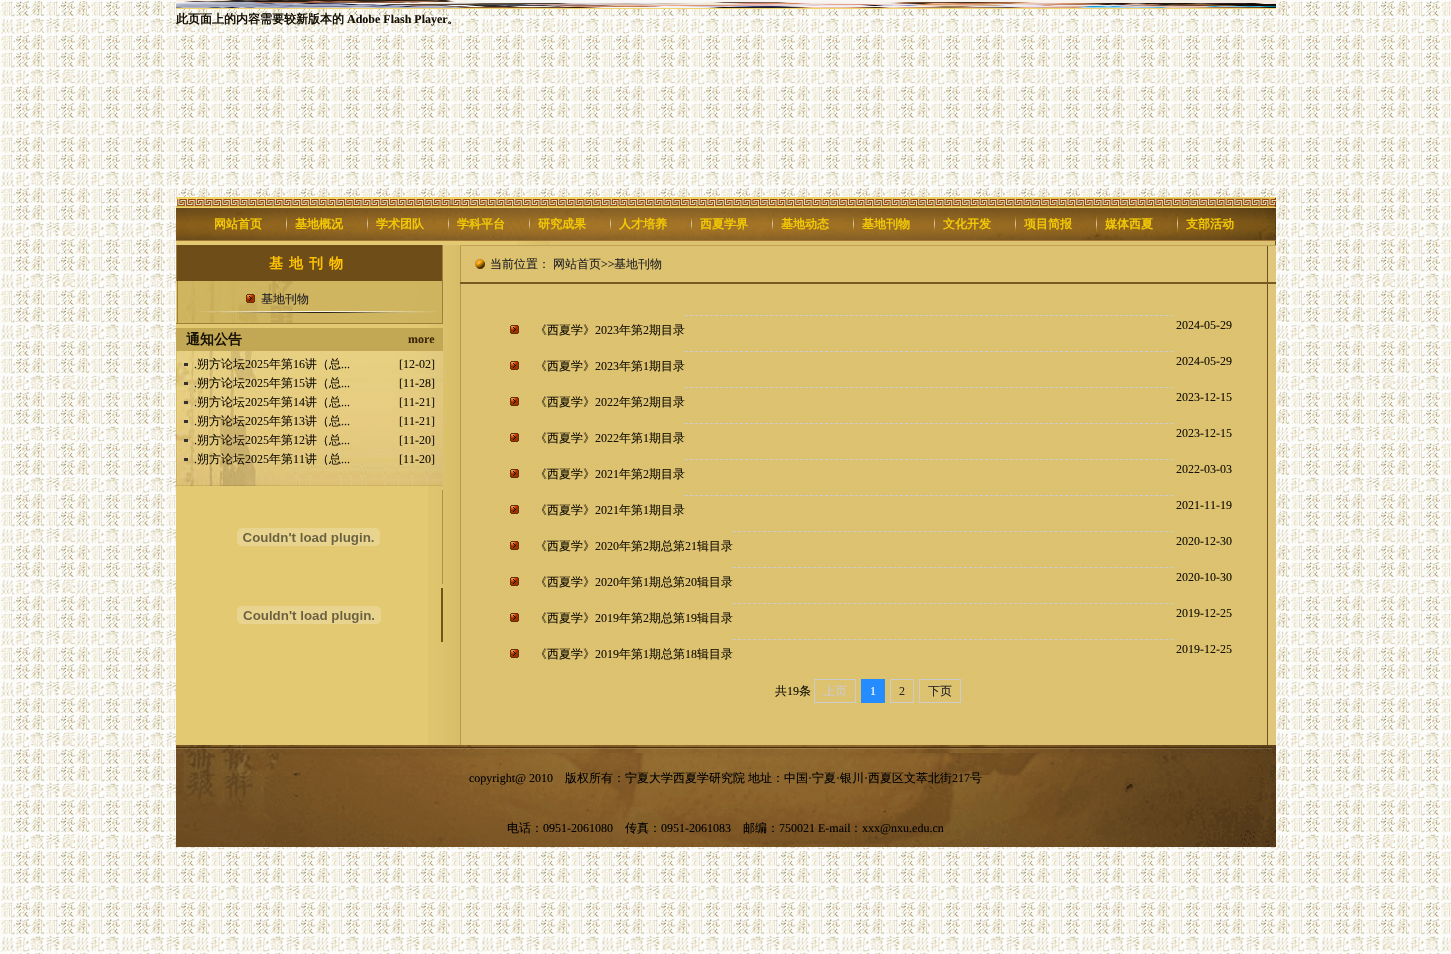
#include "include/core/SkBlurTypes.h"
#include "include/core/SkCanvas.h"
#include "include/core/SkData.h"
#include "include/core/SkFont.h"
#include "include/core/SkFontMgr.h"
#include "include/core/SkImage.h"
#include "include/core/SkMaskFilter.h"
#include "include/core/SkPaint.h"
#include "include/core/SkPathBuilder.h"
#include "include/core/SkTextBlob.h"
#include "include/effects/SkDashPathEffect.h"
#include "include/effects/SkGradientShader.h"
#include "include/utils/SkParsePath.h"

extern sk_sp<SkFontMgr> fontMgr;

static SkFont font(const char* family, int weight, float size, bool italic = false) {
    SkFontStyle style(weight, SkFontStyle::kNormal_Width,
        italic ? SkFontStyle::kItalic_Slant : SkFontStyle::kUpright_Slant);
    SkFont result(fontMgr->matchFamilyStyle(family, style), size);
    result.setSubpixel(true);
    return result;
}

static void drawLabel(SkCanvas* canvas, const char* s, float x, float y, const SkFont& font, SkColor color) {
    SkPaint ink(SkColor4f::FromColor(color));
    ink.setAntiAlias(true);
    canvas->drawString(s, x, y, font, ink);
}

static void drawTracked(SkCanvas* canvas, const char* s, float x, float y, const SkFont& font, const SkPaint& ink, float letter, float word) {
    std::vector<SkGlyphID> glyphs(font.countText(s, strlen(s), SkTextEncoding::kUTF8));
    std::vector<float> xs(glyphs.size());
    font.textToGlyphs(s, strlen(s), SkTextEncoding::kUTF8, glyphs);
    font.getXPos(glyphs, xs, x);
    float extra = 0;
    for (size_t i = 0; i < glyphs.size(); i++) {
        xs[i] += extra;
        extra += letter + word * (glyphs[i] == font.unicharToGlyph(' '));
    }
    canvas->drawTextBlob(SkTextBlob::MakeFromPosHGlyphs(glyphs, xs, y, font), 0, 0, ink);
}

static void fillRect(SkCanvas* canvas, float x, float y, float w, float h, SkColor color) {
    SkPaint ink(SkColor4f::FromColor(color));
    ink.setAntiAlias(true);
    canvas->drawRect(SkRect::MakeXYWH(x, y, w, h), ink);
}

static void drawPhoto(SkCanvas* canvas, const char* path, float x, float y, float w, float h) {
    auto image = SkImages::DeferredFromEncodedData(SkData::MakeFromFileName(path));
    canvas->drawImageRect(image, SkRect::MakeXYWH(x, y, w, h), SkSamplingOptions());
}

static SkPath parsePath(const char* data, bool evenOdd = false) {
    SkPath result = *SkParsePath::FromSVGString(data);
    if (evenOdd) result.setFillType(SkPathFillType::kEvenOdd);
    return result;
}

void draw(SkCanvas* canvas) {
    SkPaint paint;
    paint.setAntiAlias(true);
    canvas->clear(0xFFFFFFFF);
    drawPhoto(canvas, "assets/img1.png", 0, 0, 1451, 954);
    fillRect(canvas, 176, 8, 1100, 1, 0xFFF0D469);
    drawPhoto(canvas, "assets/img2.png", 176, 0, 1100, 8);
    SkFont font1 = font("WenQuanYi Zen Hei", 700, 12);
    drawLabel(canvas, "此页面上的内容需要较新版本的", 176, 23, font1, 0xFF161103);
    SkFont font2 = font("Liberation Serif", 700, 12);
    drawLabel(canvas, "Adobe Flash Player", 347, 23, font2, 0xFF161103);
    drawLabel(canvas, "。", 447, 23, font1, 0xFF161103);
    fillRect(canvas, 176, 197, 1100, 1, 0xFFF0D469);
    fillRect(canvas, 176, 207, 1100, 1, 0xFFF0D469);
    drawPhoto(canvas, "assets/img3.png", 176, 198, 1100, 9);
    drawPhoto(canvas, "assets/img4.png", 176, 208, 1100, 32);
    fillRect(canvas, 176, 240, 1100, 1, 0xFFA37735);
    drawLabel(canvas, "网站首页", 214, 228, font1, 0xFFF3C904);
    drawPhoto(canvas, "assets/img5.png", 286, 216, 1, 16);
    drawLabel(canvas, "基地概况", 295, 228, font1, 0xFFF3C904);
    drawPhoto(canvas, "assets/img5.png", 367, 216, 1, 16);
    drawLabel(canvas, "学术团队", 376, 228, font1, 0xFFF3C904);
    drawPhoto(canvas, "assets/img5.png", 448, 216, 1, 16);
    drawLabel(canvas, "学科平台", 457, 228, font1, 0xFFF3C904);
    drawPhoto(canvas, "assets/img5.png", 529, 216, 1, 16);
    drawLabel(canvas, "研究成果", 538, 228, font1, 0xFFF3C904);
    drawPhoto(canvas, "assets/img5.png", 610, 216, 1, 16);
    drawLabel(canvas, "人才培养", 619, 228, font1, 0xFFF3C904);
    drawPhoto(canvas, "assets/img5.png", 691, 216, 1, 16);
    drawLabel(canvas, "西夏学界", 700, 228, font1, 0xFFF3C904);
    drawPhoto(canvas, "assets/img5.png", 772, 216, 1, 16);
    drawLabel(canvas, "基地动态", 781, 228, font1, 0xFFF3C904);
    drawPhoto(canvas, "assets/img5.png", 853, 216, 1, 16);
    drawLabel(canvas, "基地刊物", 862, 228, font1, 0xFFF3C904);
    drawPhoto(canvas, "assets/img5.png", 934, 216, 1, 16);
    drawLabel(canvas, "文化开发", 943, 228, font1, 0xFFF3C904);
    drawPhoto(canvas, "assets/img5.png", 1015, 216, 1, 16);
    drawLabel(canvas, "项目简报", 1024, 228, font1, 0xFFF3C904);
    drawPhoto(canvas, "assets/img5.png", 1096, 216, 1, 16);
    drawLabel(canvas, "媒体西夏", 1105, 228, font1, 0xFFF3C904);
    drawPhoto(canvas, "assets/img5.png", 1177, 216, 1, 16);
    drawLabel(canvas, "支部活动", 1186, 228, font1, 0xFFF3C904);
    fillRect(canvas, 176, 241, 341, 4, 0xFFE3CA72);
    drawPhoto(canvas, "assets/img6.png", 517, 241, 759, 4);
    fillRect(canvas, 176, 324, 252, 421, 0xFFE3CA72);
    drawPhoto(canvas, "assets/img7.png", 428, 245, 848, 500);
    fillRect(canvas, 177, 245, 265, 36, 0xFF6E4D19);
    fillRect(canvas, 442, 245, 1, 79, 0xFF9D7E3C);
    fillRect(canvas, 176, 245, 1, 36, 0xFF9D7E3C);
    SkFont font3 = font("WenQuanYi Zen Hei", 700, 14);
    paint.setColor(0xFFFFC300);
    drawTracked(canvas, "基地刊物", 269, 268, font3, paint, 6, 0);
    drawPhoto(canvas, "assets/img8.png", 176, 281, 266, 42);
    fillRect(canvas, 176, 323, 267, 1, 0xFF9D7E3C);
    drawPhoto(canvas, "assets/img9.png", 196, 311, 241, 2);
    drawPhoto(canvas, "assets/img10.png", 246, 294, 9, 9);
    SkFont font4 = font("WenQuanYi Zen Hei", 500, 12);
    drawLabel(canvas, "基地刊物", 261, 303, font4, 0xFF232323);
    fillRect(canvas, 176, 328, 267, 23, 0xFFC2A855);
    drawLabel(canvas, "通知公告", 186, 344, font3, 0xFF161103);
    drawLabel(canvas, "more", 408, 343, font2, 0xFF3E2805);
    drawPhoto(canvas, "assets/img11.png", 176, 351, 267, 135);
    fillRect(canvas, 184, 363, 4, 3, 0xFF333333);
    SkFont font5 = font("Liberation Serif", 400, 12);
    drawLabel(canvas, ".", 194, 368, font5, 0xFF161103);
    drawLabel(canvas, "朔方论坛", 197, 368, font4, 0xFF161103);
    drawLabel(canvas, "2025", 245, 368, font5, 0xFF161103);
    drawLabel(canvas, "年第", 269, 368, font4, 0xFF161103);
    drawLabel(canvas, "16", 293, 368, font5, 0xFF161103);
    drawLabel(canvas, "讲（总", 305, 368, font4, 0xFF161103);
    drawLabel(canvas, "...", 341, 368, font5, 0xFF161103);
    drawLabel(canvas, "[12-02]", 399, 368, font5, 0xFF161103);
    fillRect(canvas, 184, 382, 4, 3, 0xFF333333);
    drawLabel(canvas, ".", 194, 387, font5, 0xFF161103);
    drawLabel(canvas, "朔方论坛", 197, 387, font4, 0xFF161103);
    drawLabel(canvas, "2025", 245, 387, font5, 0xFF161103);
    drawLabel(canvas, "年第", 269, 387, font4, 0xFF161103);
    drawLabel(canvas, "15", 293, 387, font5, 0xFF161103);
    drawLabel(canvas, "讲（总", 305, 387, font4, 0xFF161103);
    drawLabel(canvas, "...", 341, 387, font5, 0xFF161103);
    drawLabel(canvas, "[11-28]", 399, 387, font5, 0xFF161103);
    fillRect(canvas, 184, 401, 4, 3, 0xFF333333);
    drawLabel(canvas, ".", 194, 406, font5, 0xFF161103);
    drawLabel(canvas, "朔方论坛", 197, 406, font4, 0xFF161103);
    drawLabel(canvas, "2025", 245, 406, font5, 0xFF161103);
    drawLabel(canvas, "年第", 269, 406, font4, 0xFF161103);
    drawLabel(canvas, "14", 293, 406, font5, 0xFF161103);
    drawLabel(canvas, "讲（总", 305, 406, font4, 0xFF161103);
    drawLabel(canvas, "...", 341, 406, font5, 0xFF161103);
    drawLabel(canvas, "[11-21]", 399, 406, font5, 0xFF161103);
    fillRect(canvas, 184, 420, 4, 3, 0xFF333333);
    drawLabel(canvas, ".", 194, 425, font5, 0xFF161103);
    drawLabel(canvas, "朔方论坛", 197, 425, font4, 0xFF161103);
    drawLabel(canvas, "2025", 245, 425, font5, 0xFF161103);
    drawLabel(canvas, "年第", 269, 425, font4, 0xFF161103);
    drawLabel(canvas, "13", 293, 425, font5, 0xFF161103);
    drawLabel(canvas, "讲（总", 305, 425, font4, 0xFF161103);
    drawLabel(canvas, "...", 341, 425, font5, 0xFF161103);
    drawLabel(canvas, "[11-21]", 399, 425, font5, 0xFF161103);
    fillRect(canvas, 184, 439, 4, 3, 0xFF333333);
    drawLabel(canvas, ".", 194, 444, font5, 0xFF161103);
    drawLabel(canvas, "朔方论坛", 197, 444, font4, 0xFF161103);
    drawLabel(canvas, "2025", 245, 444, font5, 0xFF161103);
    drawLabel(canvas, "年第", 269, 444, font4, 0xFF161103);
    drawLabel(canvas, "12", 293, 444, font5, 0xFF161103);
    drawLabel(canvas, "讲（总", 305, 444, font4, 0xFF161103);
    drawLabel(canvas, "...", 341, 444, font5, 0xFF161103);
    drawLabel(canvas, "[11-20]", 399, 444, font5, 0xFF161103);
    fillRect(canvas, 184, 458, 4, 3, 0xFF333333);
    drawLabel(canvas, ".", 194, 463, font5, 0xFF161103);
    drawLabel(canvas, "朔方论坛", 197, 463, font4, 0xFF161103);
    drawLabel(canvas, "2025", 245, 463, font5, 0xFF161103);
    drawLabel(canvas, "年第", 269, 463, font4, 0xFF161103);
    drawLabel(canvas, "11", 293, 463, font5, 0xFF161103);
    drawLabel(canvas, "讲（总", 305, 463, font4, 0xFF161103);
    drawLabel(canvas, "...", 341, 463, font5, 0xFF161103);
    drawLabel(canvas, "[11-20]", 399, 463, font5, 0xFF161103);
    fillRect(canvas, 442, 490, 1, 94, 0xFFB39235);
    drawPhoto(canvas, "assets/img12.png", 237, 528, 143, 18);
    fillRect(canvas, 441, 588, 2, 54, 0xFF755313);
    drawPhoto(canvas, "assets/img13.png", 237, 606, 144, 18);
    drawPhoto(canvas, "assets/img14.png", 475, 259, 10, 10);
    fillRect(canvas, 460, 245, 816, 1, 0xFFC0A356);
    fillRect(canvas, 460, 282, 816, 2, 0xFF795922);
    drawLabel(canvas, "当前位置：", 490, 268, font4, 0xFF232323);
    drawLabel(canvas, "网站首页", 553, 268, font4, 0xFF232323);
    drawLabel(canvas, ">>", 601, 268, font5, 0xFF232323);
    drawLabel(canvas, "基地刊物", 614, 268, font4, 0xFF232323);
    paint.setStroke(true);
    paint.setStrokeWidth(1);
    paint.setColor(0xFFCCCCCC);
    paint.setPathEffect(SkDashPathEffect::Make({{3, 2}}, 0));
    canvas->drawPath(parsePath("M685 315.5H1173"), paint);
    paint.setPathEffect(nullptr);
    drawPhoto(canvas, "assets/img10.png", 510, 325, 9, 9);
    drawLabel(canvas, "《西夏学》", 535, 334, font4, 0xFF161103);
    drawLabel(canvas, "2023", 595, 334, font5, 0xFF161103);
    drawLabel(canvas, "年第", 619, 334, font4, 0xFF161103);
    drawLabel(canvas, "2", 643, 334, font5, 0xFF161103);
    drawLabel(canvas, "期目录", 649, 334, font4, 0xFF161103);
    drawLabel(canvas, "2024-05-29", 1176, 329, font5, 0xFF161103);
    paint.setPathEffect(SkDashPathEffect::Make({{3, 2}}, 0));
    canvas->drawPath(parsePath("M685 351.5H1173"), paint);
    paint.setPathEffect(nullptr);
    drawPhoto(canvas, "assets/img10.png", 510, 361, 9, 9);
    drawLabel(canvas, "《西夏学》", 535, 370, font4, 0xFF161103);
    drawLabel(canvas, "2023", 595, 370, font5, 0xFF161103);
    drawLabel(canvas, "年第", 619, 370, font4, 0xFF161103);
    drawLabel(canvas, "1", 643, 370, font5, 0xFF161103);
    drawLabel(canvas, "期目录", 649, 370, font4, 0xFF161103);
    drawLabel(canvas, "2024-05-29", 1176, 365, font5, 0xFF161103);
    paint.setPathEffect(SkDashPathEffect::Make({{3, 2}}, 0));
    canvas->drawPath(parsePath("M685 387.5H1173"), paint);
    paint.setPathEffect(nullptr);
    drawPhoto(canvas, "assets/img10.png", 510, 397, 9, 9);
    drawLabel(canvas, "《西夏学》", 535, 406, font4, 0xFF161103);
    drawLabel(canvas, "2022", 595, 406, font5, 0xFF161103);
    drawLabel(canvas, "年第", 619, 406, font4, 0xFF161103);
    drawLabel(canvas, "2", 643, 406, font5, 0xFF161103);
    drawLabel(canvas, "期目录", 649, 406, font4, 0xFF161103);
    drawLabel(canvas, "2023-12-15", 1176, 401, font5, 0xFF161103);
    paint.setPathEffect(SkDashPathEffect::Make({{3, 2}}, 0));
    canvas->drawPath(parsePath("M685 423.5H1173"), paint);
    paint.setPathEffect(nullptr);
    drawPhoto(canvas, "assets/img10.png", 510, 433, 9, 9);
    drawLabel(canvas, "《西夏学》", 535, 442, font4, 0xFF161103);
    drawLabel(canvas, "2022", 595, 442, font5, 0xFF161103);
    drawLabel(canvas, "年第", 619, 442, font4, 0xFF161103);
    drawLabel(canvas, "1", 643, 442, font5, 0xFF161103);
    drawLabel(canvas, "期目录", 649, 442, font4, 0xFF161103);
    drawLabel(canvas, "2023-12-15", 1176, 437, font5, 0xFF161103);
    paint.setPathEffect(SkDashPathEffect::Make({{3, 2}}, 0));
    canvas->drawPath(parsePath("M685 459.5H1173"), paint);
    paint.setPathEffect(nullptr);
    drawPhoto(canvas, "assets/img10.png", 510, 469, 9, 9);
    drawLabel(canvas, "《西夏学》", 535, 478, font4, 0xFF161103);
    drawLabel(canvas, "2021", 595, 478, font5, 0xFF161103);
    drawLabel(canvas, "年第", 619, 478, font4, 0xFF161103);
    drawLabel(canvas, "2", 643, 478, font5, 0xFF161103);
    drawLabel(canvas, "期目录", 649, 478, font4, 0xFF161103);
    drawLabel(canvas, "2022-03-03", 1176, 473, font5, 0xFF161103);
    paint.setPathEffect(SkDashPathEffect::Make({{3, 2}}, 0));
    canvas->drawPath(parsePath("M685 495.5H1173"), paint);
    paint.setPathEffect(nullptr);
    drawPhoto(canvas, "assets/img10.png", 510, 505, 9, 9);
    drawLabel(canvas, "《西夏学》", 535, 514, font4, 0xFF161103);
    drawLabel(canvas, "2021", 595, 514, font5, 0xFF161103);
    drawLabel(canvas, "年第", 619, 514, font4, 0xFF161103);
    drawLabel(canvas, "1", 643, 514, font5, 0xFF161103);
    drawLabel(canvas, "期目录", 649, 514, font4, 0xFF161103);
    drawLabel(canvas, "2021-11-19", 1176, 509, font5, 0xFF161103);
    paint.setPathEffect(SkDashPathEffect::Make({{3, 2.02f}}, 0));
    canvas->drawPath(parsePath("M733 531.5H1173"), paint);
    paint.setPathEffect(nullptr);
    drawPhoto(canvas, "assets/img10.png", 510, 541, 9, 9);
    drawLabel(canvas, "《西夏学》", 535, 550, font4, 0xFF161103);
    drawLabel(canvas, "2020", 595, 550, font5, 0xFF161103);
    drawLabel(canvas, "年第", 619, 550, font4, 0xFF161103);
    drawLabel(canvas, "2", 643, 550, font5, 0xFF161103);
    drawLabel(canvas, "期总第", 649, 550, font4, 0xFF161103);
    drawLabel(canvas, "21", 685, 550, font5, 0xFF161103);
    drawLabel(canvas, "辑目录", 697, 550, font4, 0xFF161103);
    drawLabel(canvas, "2020-12-30", 1176, 545, font5, 0xFF161103);
    paint.setPathEffect(SkDashPathEffect::Make({{3, 2.02f}}, 0));
    canvas->drawPath(parsePath("M733 567.5H1173"), paint);
    paint.setPathEffect(nullptr);
    drawPhoto(canvas, "assets/img10.png", 510, 577, 9, 9);
    drawLabel(canvas, "《西夏学》", 535, 586, font4, 0xFF161103);
    drawLabel(canvas, "2020", 595, 586, font5, 0xFF161103);
    drawLabel(canvas, "年第", 619, 586, font4, 0xFF161103);
    drawLabel(canvas, "1", 643, 586, font5, 0xFF161103);
    drawLabel(canvas, "期总第", 649, 586, font4, 0xFF161103);
    drawLabel(canvas, "20", 685, 586, font5, 0xFF161103);
    drawLabel(canvas, "辑目录", 697, 586, font4, 0xFF161103);
    drawLabel(canvas, "2020-10-30", 1176, 581, font5, 0xFF161103);
    paint.setPathEffect(SkDashPathEffect::Make({{3, 2.02f}}, 0));
    canvas->drawPath(parsePath("M733 603.5H1173"), paint);
    paint.setPathEffect(nullptr);
    drawPhoto(canvas, "assets/img10.png", 510, 613, 9, 9);
    drawLabel(canvas, "《西夏学》", 535, 622, font4, 0xFF161103);
    drawLabel(canvas, "2019", 595, 622, font5, 0xFF161103);
    drawLabel(canvas, "年第", 619, 622, font4, 0xFF161103);
    drawLabel(canvas, "2", 643, 622, font5, 0xFF161103);
    drawLabel(canvas, "期总第", 649, 622, font4, 0xFF161103);
    drawLabel(canvas, "19", 685, 622, font5, 0xFF161103);
    drawLabel(canvas, "辑目录", 697, 622, font4, 0xFF161103);
    drawLabel(canvas, "2019-12-25", 1176, 617, font5, 0xFF161103);
    paint.setPathEffect(SkDashPathEffect::Make({{3, 2.02f}}, 0));
    canvas->drawPath(parsePath("M733 639.5H1173"), paint);
    paint.setPathEffect(nullptr);
    drawPhoto(canvas, "assets/img10.png", 510, 649, 9, 9);
    drawLabel(canvas, "《西夏学》", 535, 658, font4, 0xFF161103);
    drawLabel(canvas, "2019", 595, 658, font5, 0xFF161103);
    drawLabel(canvas, "年第", 619, 658, font4, 0xFF161103);
    drawLabel(canvas, "1", 643, 658, font5, 0xFF161103);
    drawLabel(canvas, "期总第", 649, 658, font4, 0xFF161103);
    drawLabel(canvas, "18", 685, 658, font5, 0xFF161103);
    drawLabel(canvas, "辑目录", 697, 658, font4, 0xFF161103);
    drawLabel(canvas, "2019-12-25", 1176, 653, font5, 0xFF161103);
    drawLabel(canvas, "共", 775, 695, font4, 0xFF161103);
    drawLabel(canvas, "19", 787, 695, font5, 0xFF161103);
    drawLabel(canvas, "条", 799, 695, font4, 0xFF161103);
    canvas->drawRect(SkRect::MakeXYWH(814.5f, 679.5f, 41, 23), paint);
    drawLabel(canvas, "上页", 823, 695, font4, 0xFFCCCCCC);
    fillRect(canvas, 861, 679, 24, 24, 0xFF258CFF);
    drawLabel(canvas, "1", 870, 695, font5, 0xFFFFFFFF);
    canvas->drawRect(SkRect::MakeXYWH(890.5f, 679.5f, 23, 23), paint);
    drawLabel(canvas, "2", 899, 695, font5, 0xFF232323);
    canvas->drawRect(SkRect::MakeXYWH(919.5f, 679.5f, 41, 23), paint);
    drawLabel(canvas, "下页", 928, 695, font4, 0xFF232323);
    drawPhoto(canvas, "assets/img15.png", 176, 745, 1100, 102);
    drawLabel(canvas, "copyright@ 2010", 469, 782, font5, 0xFF000000);
    drawLabel(canvas, "版权所有：宁夏大学西夏学研究院", 565, 782, font4, 0xFF000000);
    drawLabel(canvas, "地址：中国", 748, 782, font4, 0xFF000000);
    drawLabel(canvas, "·", 808, 782, font5, 0xFF000000);
    drawLabel(canvas, "宁夏", 812, 782, font4, 0xFF000000);
    drawLabel(canvas, "·", 836, 782, font5, 0xFF000000);
    drawLabel(canvas, "银川", 840, 782, font4, 0xFF000000);
    drawLabel(canvas, "·", 864, 782, font5, 0xFF000000);
    drawLabel(canvas, "西夏区文萃北街", 868, 782, font4, 0xFF000000);
    drawLabel(canvas, "217", 952, 782, font5, 0xFF000000);
    drawLabel(canvas, "号", 970, 782, font4, 0xFF000000);
    drawLabel(canvas, "电话：", 507, 832, font4, 0xFF000000);
    drawLabel(canvas, "0951-2061080", 543, 832, font5, 0xFF000000);
    drawLabel(canvas, "传真：", 625, 832, font4, 0xFF000000);
    drawLabel(canvas, "0951-2061083", 661, 832, font5, 0xFF000000);
    drawLabel(canvas, "邮编：", 743, 832, font4, 0xFF000000);
    drawLabel(canvas, "750021 E-mail", 779, 832, font5, 0xFF000000);
    drawLabel(canvas, "：", 850, 832, font4, 0xFF000000);
    drawLabel(canvas, "xxx@nxu.edu.cn", 862, 832, font5, 0xFF000000);
}
